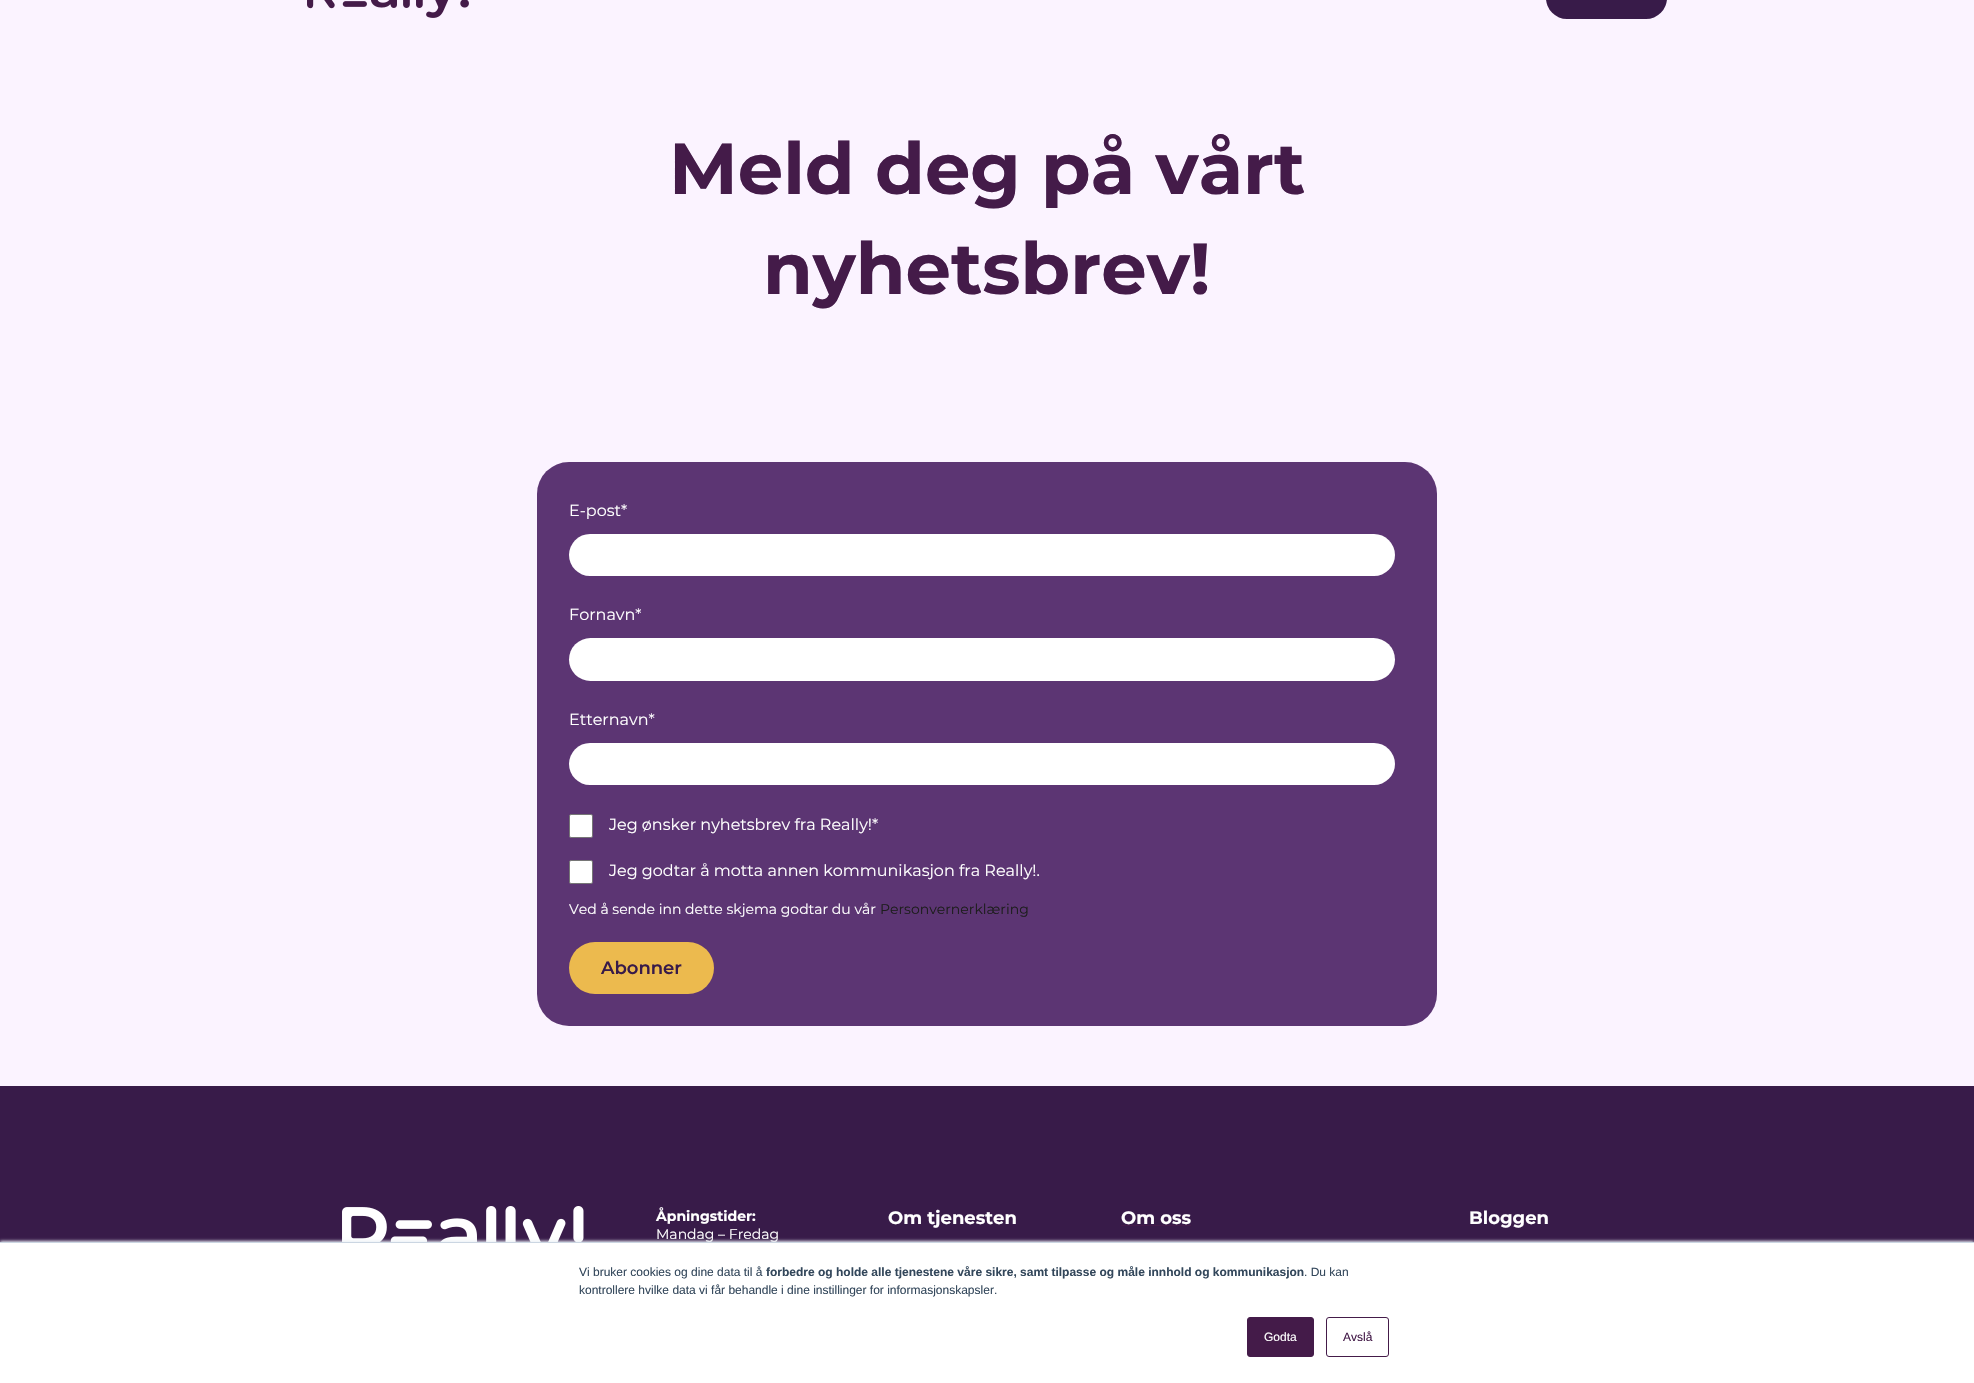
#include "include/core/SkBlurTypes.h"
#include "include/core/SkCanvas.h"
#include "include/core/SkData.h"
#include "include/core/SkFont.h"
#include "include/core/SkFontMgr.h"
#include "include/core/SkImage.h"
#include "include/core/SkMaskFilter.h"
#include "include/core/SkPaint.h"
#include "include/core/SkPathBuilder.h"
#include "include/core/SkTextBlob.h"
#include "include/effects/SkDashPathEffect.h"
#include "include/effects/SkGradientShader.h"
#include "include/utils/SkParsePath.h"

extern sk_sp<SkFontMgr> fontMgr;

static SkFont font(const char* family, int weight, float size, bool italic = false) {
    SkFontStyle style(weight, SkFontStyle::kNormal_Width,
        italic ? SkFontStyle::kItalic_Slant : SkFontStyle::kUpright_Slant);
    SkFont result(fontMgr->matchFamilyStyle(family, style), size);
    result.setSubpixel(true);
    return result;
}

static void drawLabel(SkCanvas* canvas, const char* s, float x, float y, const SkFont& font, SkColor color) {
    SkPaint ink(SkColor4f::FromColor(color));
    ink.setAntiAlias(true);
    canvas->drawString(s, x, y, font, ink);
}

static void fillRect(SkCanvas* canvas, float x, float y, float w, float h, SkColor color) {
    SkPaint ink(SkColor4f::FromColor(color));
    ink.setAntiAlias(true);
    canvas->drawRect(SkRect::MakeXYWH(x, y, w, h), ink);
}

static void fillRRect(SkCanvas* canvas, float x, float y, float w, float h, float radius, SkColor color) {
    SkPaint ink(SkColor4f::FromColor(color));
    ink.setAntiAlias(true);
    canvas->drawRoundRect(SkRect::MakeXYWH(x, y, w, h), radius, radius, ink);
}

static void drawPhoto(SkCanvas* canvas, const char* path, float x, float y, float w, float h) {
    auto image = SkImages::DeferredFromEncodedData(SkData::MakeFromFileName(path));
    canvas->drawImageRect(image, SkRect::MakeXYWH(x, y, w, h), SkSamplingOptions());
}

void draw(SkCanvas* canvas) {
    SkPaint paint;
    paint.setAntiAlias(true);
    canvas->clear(0xFFFBF3FF);
    drawPhoto(canvas, "assets/img1.png", 307, 0, 162, 18);
    fillRRect(canvas, 1546, -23, 121, 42, 22.5f, 0xFF381B49);
    SkFont font1 = font("Montserrat", 700, 72);
    drawLabel(canvas, "Meld deg på vårt", 669, 194, font1, 0xFF441B49);
    drawLabel(canvas, "nyhetsbrev!", 763, 294, font1, 0xFF441B49);
    fillRRect(canvas, 537, 462, 900, 564, 32, 0xFF5C3573);
    SkFont font2 = font("Montserrat", 400, 16);
    drawLabel(canvas, "E-post*", 569, 516, font2, 0xFFFFFFFF);
    fillRRect(canvas, 569, 534, 826, 42, 21, 0xFFFFFFFF);
    drawLabel(canvas, "Fornavn*", 569, 620, font2, 0xFFFFFFFF);
    fillRRect(canvas, 569, 638, 826, 43, 21.5f, 0xFFFFFFFF);
    drawLabel(canvas, "Etternavn*", 569, 725, font2, 0xFFFFFFFF);
    fillRRect(canvas, 569, 743, 826, 42, 21, 0xFFFFFFFF);
    paint.setColor(0xFFFFFFFF);
    canvas->drawRoundRect(SkRect::MakeXYWH(569.5f, 814.5f, 23, 23), 1.5f, 1.5f, paint);
    paint.setStroke(true);
    paint.setStrokeWidth(1);
    paint.setColor(0xFF767676);
    canvas->drawRoundRect(SkRect::MakeXYWH(569.5f, 814.5f, 23, 23), 1.5f, 1.5f, paint);
    drawLabel(canvas, "Jeg ønsker nyhetsbrev fra Really!*", 609, 830, font2, 0xFFFFFFFF);
    paint.setStroke(false);
    paint.setColor(0xFFFFFFFF);
    canvas->drawRoundRect(SkRect::MakeXYWH(569.5f, 860.5f, 23, 23), 1.5f, 1.5f, paint);
    paint.setStroke(true);
    paint.setColor(0xFF767676);
    canvas->drawRoundRect(SkRect::MakeXYWH(569.5f, 860.5f, 23, 23), 1.5f, 1.5f, paint);
    drawLabel(canvas, "Jeg godtar å motta annen kommunikasjon fra Really!.", 609, 876, font2, 0xFFFFFFFF);
    SkFont font3 = font("Montserrat", 400, 14);
    drawLabel(canvas, "Ved å sende inn dette skjema godtar du vår", 569, 914, font3, 0xFFFFFFFF);
    drawLabel(canvas, "Personvernerklæring", 880, 914, font3, 0xFF1D1D1D);
    fillRRect(canvas, 569, 942, 145, 52, 26, 0xFFECBA4E);
    SkFont font4 = font("Montserrat", 600, 18);
    drawLabel(canvas, "Abonner", 601, 974, font4, 0xFF381B49);
    fillRect(canvas, 0, 1086, 1974, 156, 0xFF381B49);
    drawPhoto(canvas, "assets/img2.png", 342, 1206, 242, 36);
    SkFont font5 = font("Montserrat", 700, 14);
    drawLabel(canvas, "Åpningstider:", 656, 1221, font5, 0xFFFFFFFF);
    drawLabel(canvas, "Mandag – Fredag", 656, 1239, font3, 0xFFFFFFFF);
    SkFont font6 = font("Montserrat", 700, 18);
    drawLabel(canvas, "Om tjenesten", 888, 1224, font6, 0xFFFFFFFF);
    drawLabel(canvas, "Om oss", 1121, 1224, font6, 0xFFFFFFFF);
    fillRect(canvas, 1121, 1225, 70, 1, 0xFF441B49);
    drawLabel(canvas, "Bloggen", 1469, 1224, font6, 0xFFFFFFFF);
    paint.setStroke(false);
    paint.setColor(0xFFEAF0F6);
    paint.setMaskFilter(SkMaskFilter::MakeBlur(kNormal_SkBlurStyle, 1.5f));
    canvas->drawRect(SkRect::MakeXYWH(0, 1241, 1974, 141), paint);
    paint.setMaskFilter(nullptr);
    fillRect(canvas, 0, 1243, 1974, 140, 0xFFFFFFFF);
    fillRect(canvas, 0, 1242, 1974, 1, 0xFFCBD6E2);
    SkFont font7 = font("Liberation Sans", 400, 12);
    drawLabel(canvas, "Vi bruker cookies og dine data til å", 579, 1276, font7, 0xFF33475B);
    SkFont font8 = font("Liberation Sans", 700, 12);
    drawLabel(canvas, "forbedre og holde alle tjenestene våre sikre, samt tilpasse og måle innhold og kommunikasjon", 766, 1276, font8, 0xFF33475B);
    drawLabel(canvas, ". Du kan", 1304, 1276, font7, 0xFF33475B);
    drawLabel(canvas, "kontrollere hvilke data vi får behandle i dine instillinger for informasjonskapsler.", 579, 1294, font7, 0xFF33475B);
    paint.setColor(0xFF441B49);
    canvas->drawRoundRect(SkRect::MakeXYWH(1247.5f, 1317.5f, 66, 39), 2.5f, 2.5f, paint);
    paint.setStroke(true);
    canvas->drawRoundRect(SkRect::MakeXYWH(1247.5f, 1317.5f, 66, 39), 2.5f, 2.5f, paint);
    drawLabel(canvas, "Godta", 1264, 1341, font7, 0xFFFFFFFF);
    canvas->drawRoundRect(SkRect::MakeXYWH(1326.5f, 1317.5f, 62, 39), 2.5f, 2.5f, paint);
    drawLabel(canvas, "Avslå", 1343, 1341, font7, 0xFF441B49);
}
